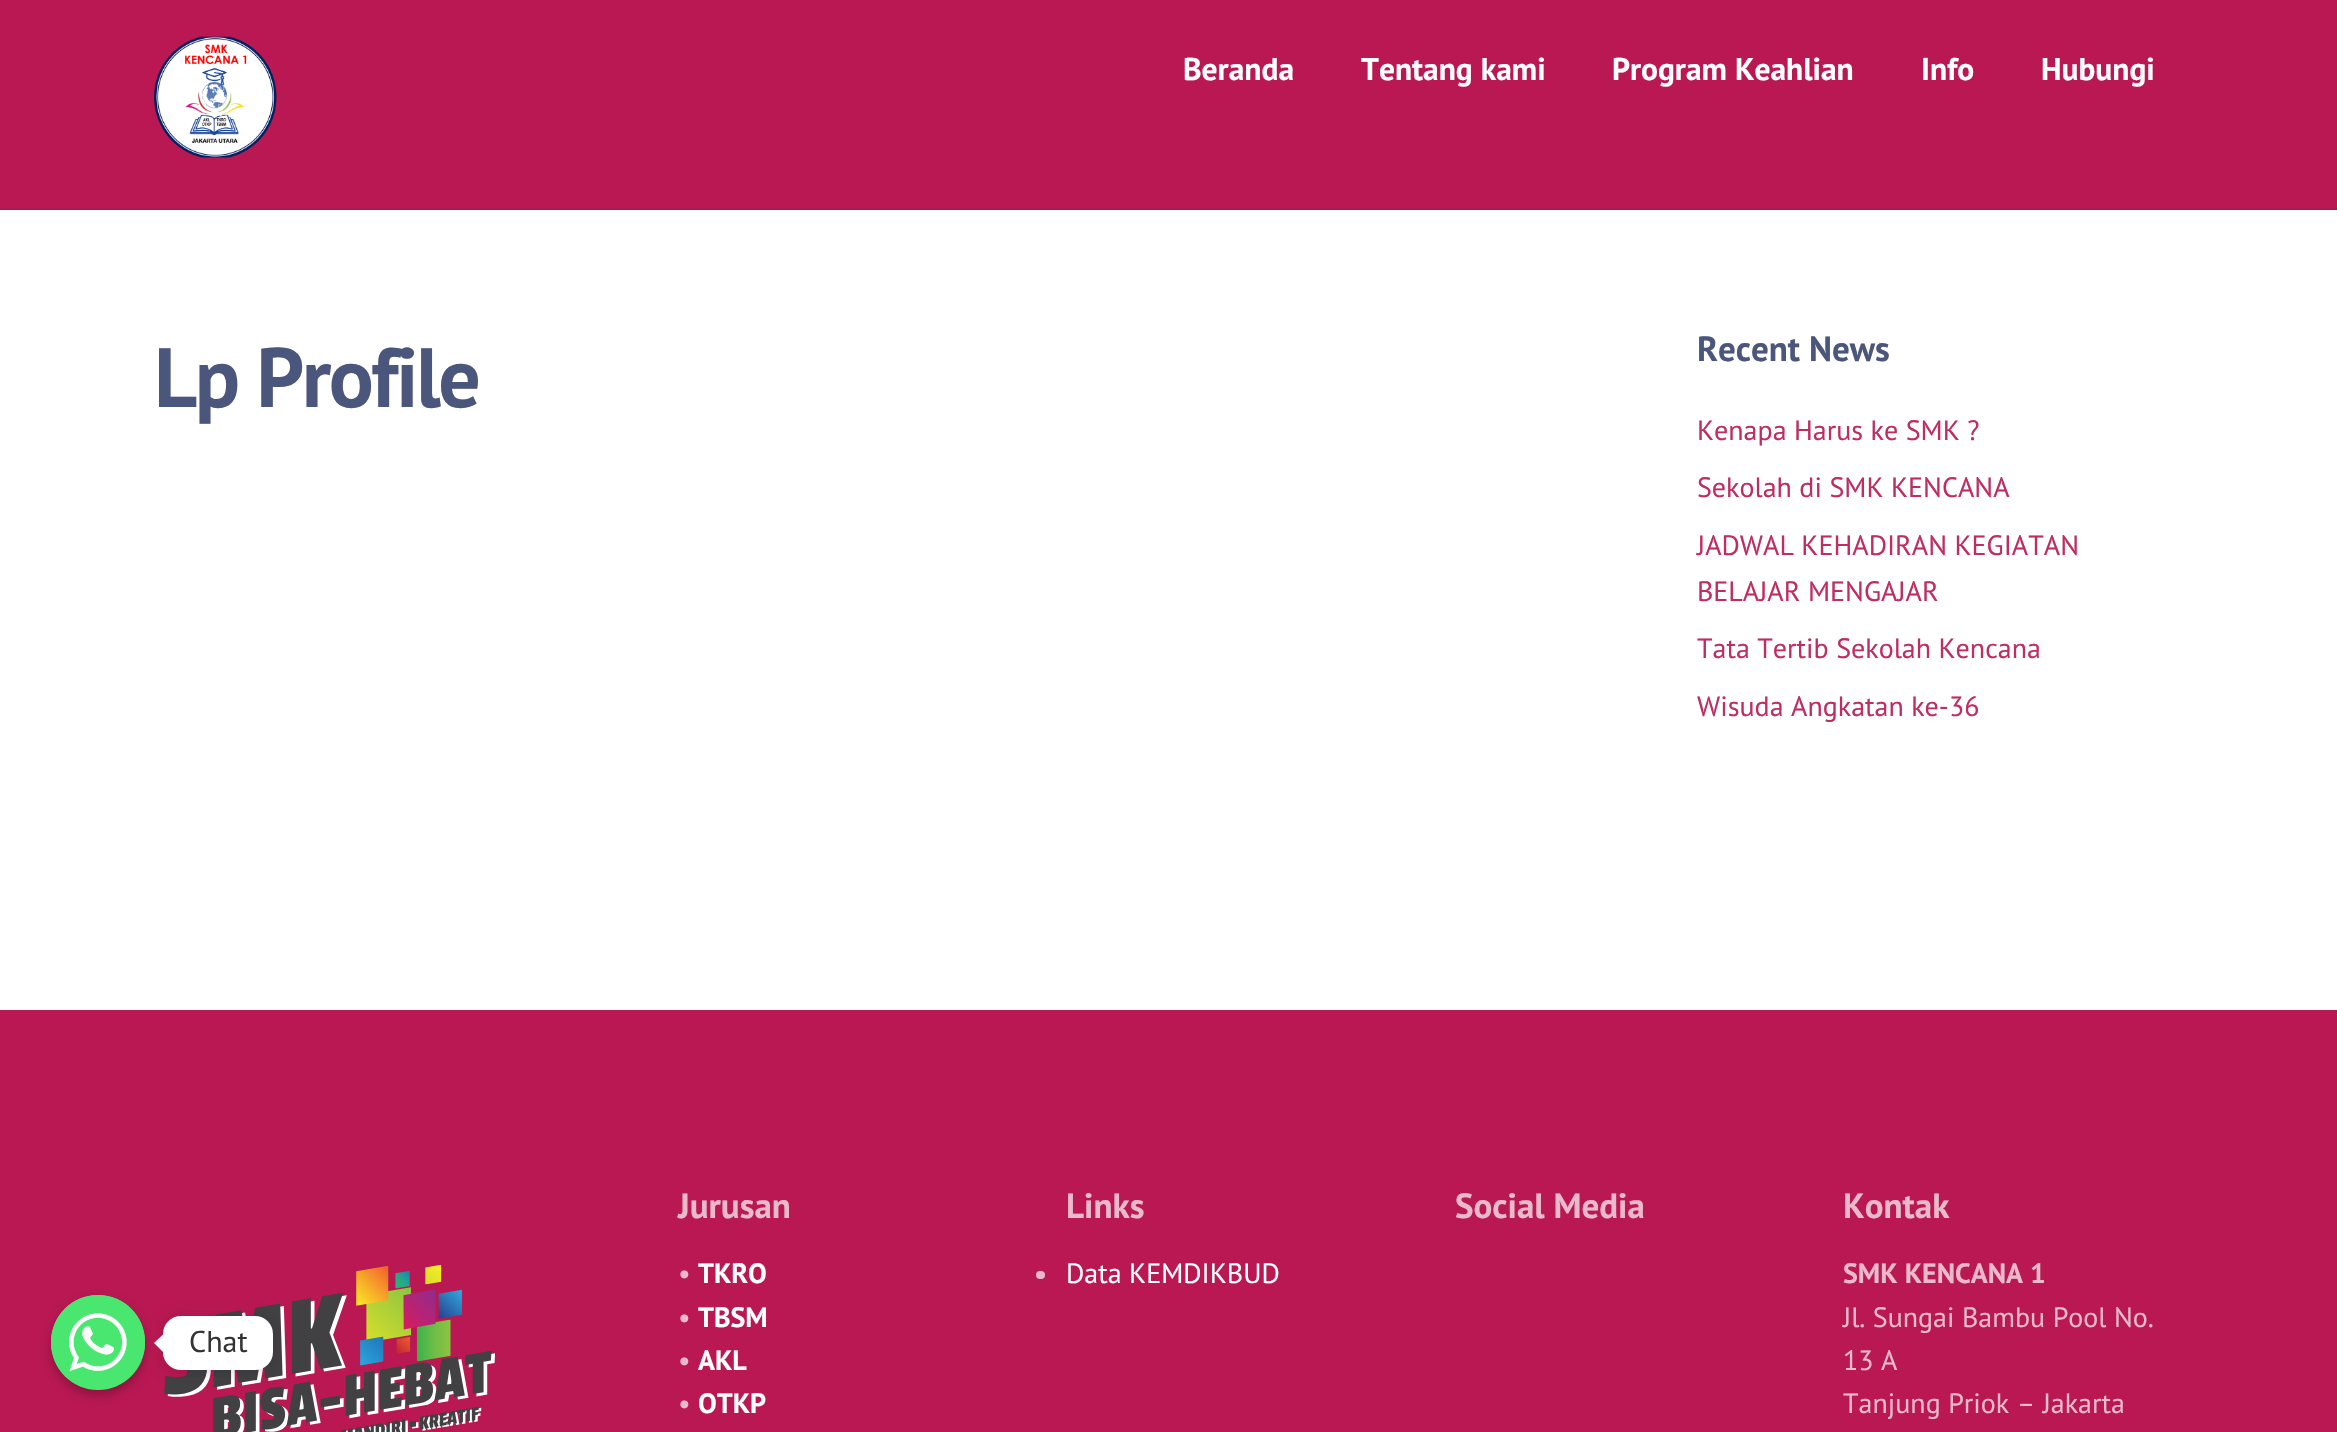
#include "include/core/SkBlurTypes.h"
#include "include/core/SkCanvas.h"
#include "include/core/SkData.h"
#include "include/core/SkFont.h"
#include "include/core/SkFontMgr.h"
#include "include/core/SkImage.h"
#include "include/core/SkMaskFilter.h"
#include "include/core/SkPaint.h"
#include "include/core/SkPathBuilder.h"
#include "include/core/SkTextBlob.h"
#include "include/effects/SkDashPathEffect.h"
#include "include/effects/SkGradientShader.h"
#include "include/utils/SkParsePath.h"

extern sk_sp<SkFontMgr> fontMgr;

static SkFont font(const char* family, int weight, float size, bool italic = false) {
    SkFontStyle style(weight, SkFontStyle::kNormal_Width,
        italic ? SkFontStyle::kItalic_Slant : SkFontStyle::kUpright_Slant);
    SkFont result(fontMgr->matchFamilyStyle(family, style), size);
    result.setSubpixel(true);
    return result;
}

static void drawLabel(SkCanvas* canvas, const char* s, float x, float y, const SkFont& font, SkColor color) {
    SkPaint ink(SkColor4f::FromColor(color));
    ink.setAntiAlias(true);
    canvas->drawString(s, x, y, font, ink);
}

static void drawTracked(SkCanvas* canvas, const char* s, float x, float y, const SkFont& font, const SkPaint& ink, float letter, float word) {
    std::vector<SkGlyphID> glyphs(font.countText(s, strlen(s), SkTextEncoding::kUTF8));
    std::vector<float> xs(glyphs.size());
    font.textToGlyphs(s, strlen(s), SkTextEncoding::kUTF8, glyphs);
    font.getXPos(glyphs, xs, x);
    float extra = 0;
    for (size_t i = 0; i < glyphs.size(); i++) {
        xs[i] += extra;
        extra += letter + word * (glyphs[i] == font.unicharToGlyph(' '));
    }
    canvas->drawTextBlob(SkTextBlob::MakeFromPosHGlyphs(glyphs, xs, y, font), 0, 0, ink);
}

static void fillRect(SkCanvas* canvas, float x, float y, float w, float h, SkColor color) {
    SkPaint ink(SkColor4f::FromColor(color));
    ink.setAntiAlias(true);
    canvas->drawRect(SkRect::MakeXYWH(x, y, w, h), ink);
}

static void fillRRect(SkCanvas* canvas, float x, float y, float w, float h, float radius, SkColor color) {
    SkPaint ink(SkColor4f::FromColor(color));
    ink.setAntiAlias(true);
    canvas->drawRoundRect(SkRect::MakeXYWH(x, y, w, h), radius, radius, ink);
}

static void drawPhoto(SkCanvas* canvas, const char* path, float x, float y, float w, float h) {
    auto image = SkImages::DeferredFromEncodedData(SkData::MakeFromFileName(path));
    canvas->drawImageRect(image, SkRect::MakeXYWH(x, y, w, h), SkSamplingOptions());
}

static SkPath parsePath(const char* data, bool evenOdd = false) {
    SkPath result = *SkParsePath::FromSVGString(data);
    if (evenOdd) result.setFillType(SkPathFillType::kEvenOdd);
    return result;
}

void draw(SkCanvas* canvas) {
    SkPaint paint;
    paint.setAntiAlias(true);
    canvas->clear(0xFFFFFFFF);
    fillRect(canvas, 0, 0, 2337, 208, 0xFFB91852);
    fillRect(canvas, 0, 208, 2337, 2, 0xFFB0174E);
    drawPhoto(canvas, "assets/img1.png", 154, 36, 123, 122);
    SkFont font1 = font("PT Sans", 700, 31.5f);
    drawLabel(canvas, "Beranda", 1183, 80, font1, 0xFFFFFFFF);
    drawLabel(canvas, "Tentang kami", 1361, 80, font1, 0xFFFFFFFF);
    drawLabel(canvas, "Program Keahlian", 1612, 80, font1, 0xFFFFFFFF);
    drawLabel(canvas, "Info", 1921, 80, font1, 0xFFFFFFFF);
    drawLabel(canvas, "Hubungi", 2041, 80, font1, 0xFFFFFFFF);
    SkFont font2 = font("PT Sans", 700, 84);
    paint.setColor(0xFF4B567D);
    drawTracked(canvas, "Lp Profile", 154, 407, font2, paint, -2.5f, 0);
    SkFont font3 = font("PT Sans", 700, 35);
    drawLabel(canvas, "Recent News", 1697, 361, font3, 0xFF4B567D);
    SkFont font4 = font("PT Sans", 400, 28);
    drawLabel(canvas, "Kenapa Harus ke SMK ?", 1697, 440, font4, 0xFFBF2E62);
    drawLabel(canvas, "Sekolah di SMK KENCANA", 1697, 497, font4, 0xFFBF2E62);
    drawLabel(canvas, "JADWAL KEHADIRAN KEGIATAN", 1697, 555, font4, 0xFFBF2E62);
    drawLabel(canvas, "BELAJAR MENGAJAR", 1697, 601, font4, 0xFFBF2E62);
    drawLabel(canvas, "Tata Tertib Sekolah Kencana", 1697, 658, font4, 0xFFBF2E62);
    drawLabel(canvas, "Wisuda Angkatan ke-36", 1697, 716, font4, 0xFFBF2E62);
    fillRect(canvas, 0, 1010, 2337, 422, 0xFFB91852);
    drawPhoto(canvas, "assets/img2.png", 162, 1264, 333, 168);
    drawLabel(canvas, "Jurusan", 678, 1218, font3, 0xFFEABACB);
    drawLabel(canvas, "•", 678, 1283, font4, 0xFFEABACB);
    SkFont font5 = font("PT Sans", 700, 28);
    drawLabel(canvas, "TKRO", 698, 1283, font5, 0xFFFFFFFF);
    drawLabel(canvas, "•", 678, 1327, font4, 0xFFEABACB);
    drawLabel(canvas, "TBSM", 698, 1327, font5, 0xFFFFFFFF);
    drawLabel(canvas, "•", 678, 1370, font4, 0xFFEABACB);
    drawLabel(canvas, "AKL", 698, 1370, font5, 0xFFFFFFFF);
    drawLabel(canvas, "•", 678, 1413, font4, 0xFFEABACB);
    drawLabel(canvas, "OTKP", 698, 1413, font5, 0xFFFFFFFF);
    drawLabel(canvas, "Links", 1066, 1218, font3, 0xFFEABACB);
    fillRRect(canvas, 1036, 1271, 9, 8, 4, 0xFFEABACB);
    drawLabel(canvas, "Data KEMDIKBUD", 1066, 1283, font4, 0xFFFFFFFF);
    drawLabel(canvas, "Social Media", 1455, 1218, font3, 0xFFEABACB);
    drawLabel(canvas, "Kontak", 1843, 1218, font3, 0xFFEABACB);
    drawLabel(canvas, "SMK KENCANA 1", 1843, 1283, font5, 0xFFEABACB);
    drawLabel(canvas, "Jl. Sungai Bambu Pool No.", 1843, 1327, font4, 0xFFEABACB);
    drawLabel(canvas, "13 A", 1843, 1370, font4, 0xFFEABACB);
    drawLabel(canvas, "Tanjung Priok – Jakarta", 1843, 1413, font4, 0xFFEABACB);
    paint.setColor(0x40000000);
    paint.setMaskFilter(SkMaskFilter::MakeBlur(kNormal_SkBlurStyle, 5));
    canvas->drawRoundRect(SkRect::MakeXYWH(51, 1300, 94, 95), 47, 47, paint);
    paint.setMaskFilter(nullptr);
    fillRRect(canvas, 51, 1295, 94, 95, 47, 0xFF49E670);
    drawPhoto(canvas, "assets/img3.png", 51, 1295, 94, 81);
    paint.setColor(0x26000000);
    paint.setMaskFilter(SkMaskFilter::MakeBlur(kNormal_SkBlurStyle, 7));
    canvas->drawRoundRect(SkRect::MakeXYWH(163, 1318, 110, 54), 18, 18, paint);
    paint.setMaskFilter(nullptr);
    fillRRect(canvas, 163, 1316, 110, 54, 18, 0xFFFFFFFF);
    paint.setColor(0xFFFFFFFF);
    canvas->drawPath(parsePath("M163 1334.5V1352L154 1343Z"), paint);
    SkFont font6 = font("PT Sans", 400, 30);
    drawLabel(canvas, "Chat", 189, 1352, font6, 0xFF333333);
}
